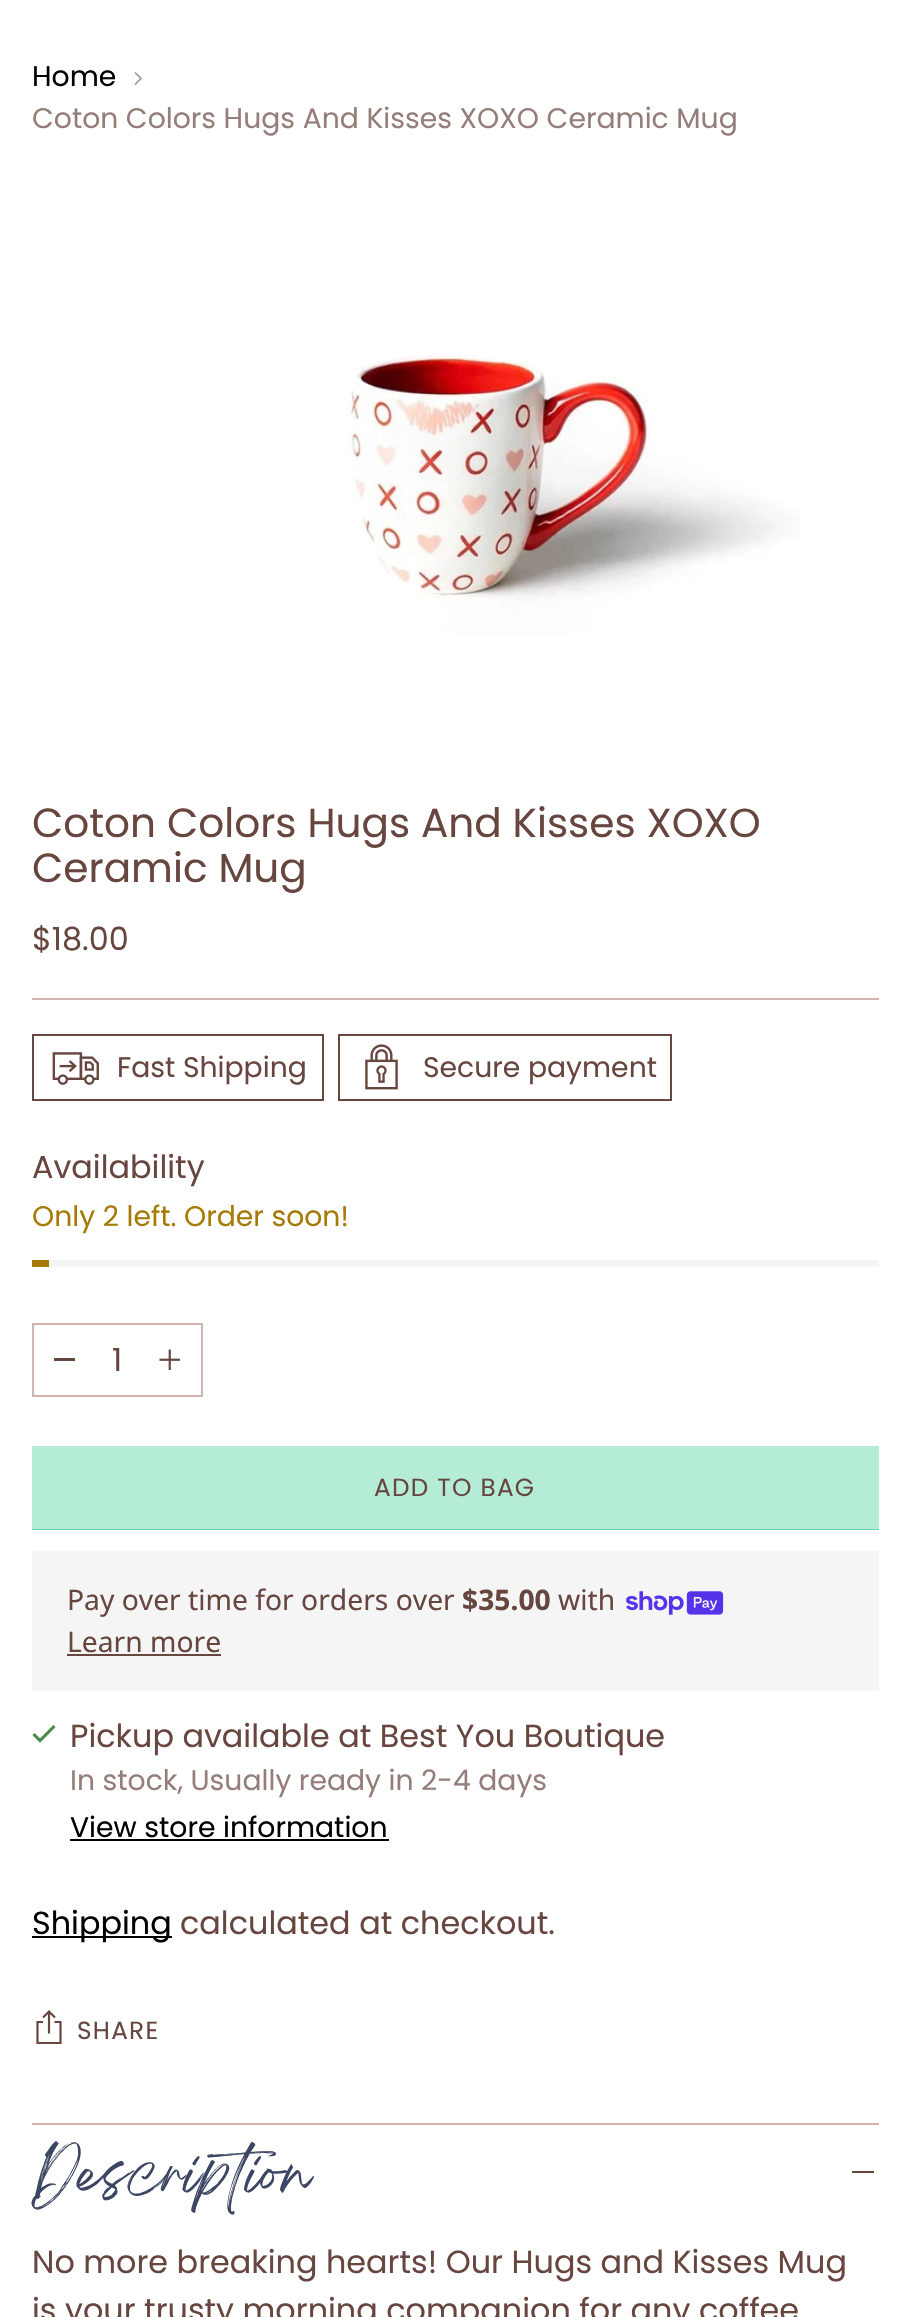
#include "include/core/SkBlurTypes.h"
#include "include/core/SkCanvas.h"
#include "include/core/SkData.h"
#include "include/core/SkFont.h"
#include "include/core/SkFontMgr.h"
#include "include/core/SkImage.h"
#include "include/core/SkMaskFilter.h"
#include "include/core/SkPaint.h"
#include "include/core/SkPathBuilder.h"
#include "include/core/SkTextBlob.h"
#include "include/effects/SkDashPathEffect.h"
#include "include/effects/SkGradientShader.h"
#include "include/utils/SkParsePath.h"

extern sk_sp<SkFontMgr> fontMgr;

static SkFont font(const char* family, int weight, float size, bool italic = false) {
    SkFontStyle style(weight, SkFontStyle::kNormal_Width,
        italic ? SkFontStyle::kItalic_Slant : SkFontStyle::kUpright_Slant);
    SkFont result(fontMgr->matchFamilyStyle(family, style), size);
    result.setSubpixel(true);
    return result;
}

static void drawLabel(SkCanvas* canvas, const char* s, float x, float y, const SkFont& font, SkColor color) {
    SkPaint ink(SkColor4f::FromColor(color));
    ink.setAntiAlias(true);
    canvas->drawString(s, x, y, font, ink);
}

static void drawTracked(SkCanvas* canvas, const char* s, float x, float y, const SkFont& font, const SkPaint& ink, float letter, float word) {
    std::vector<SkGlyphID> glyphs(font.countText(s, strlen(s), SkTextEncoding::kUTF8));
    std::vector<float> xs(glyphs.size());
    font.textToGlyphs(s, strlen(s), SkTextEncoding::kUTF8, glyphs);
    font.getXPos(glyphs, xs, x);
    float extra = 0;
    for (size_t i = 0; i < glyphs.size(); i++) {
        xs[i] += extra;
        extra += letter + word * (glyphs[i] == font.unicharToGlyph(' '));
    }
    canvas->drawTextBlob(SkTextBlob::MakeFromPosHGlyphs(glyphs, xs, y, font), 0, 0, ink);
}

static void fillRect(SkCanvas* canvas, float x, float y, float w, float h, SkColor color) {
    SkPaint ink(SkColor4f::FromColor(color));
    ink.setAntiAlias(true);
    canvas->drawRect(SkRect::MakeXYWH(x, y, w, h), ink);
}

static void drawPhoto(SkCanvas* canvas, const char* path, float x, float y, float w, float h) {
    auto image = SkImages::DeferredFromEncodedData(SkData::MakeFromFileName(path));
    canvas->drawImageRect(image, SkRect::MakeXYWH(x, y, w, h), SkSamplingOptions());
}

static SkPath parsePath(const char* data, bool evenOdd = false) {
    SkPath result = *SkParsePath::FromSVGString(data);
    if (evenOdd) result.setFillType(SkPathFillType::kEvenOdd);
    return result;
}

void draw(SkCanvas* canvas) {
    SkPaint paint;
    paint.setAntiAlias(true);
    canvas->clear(0xFFFFFFFF);
    SkFont font1 = font("Poppins", 400, 28.25f);
    drawLabel(canvas, "Home", 32, 86, font1, 0xFF000000);
    paint.setStroke(true);
    paint.setStrokeWidth(1.6f);
    paint.setColor(0xFFA4908C);
    canvas->drawPath(parsePath("M135 84.5L141 78.5L135 72.5"), paint);
    drawLabel(canvas, "Coton Colors Hugs And Kisses XOXO Ceramic Mug", 32, 128, font1, 0xFF957E79);
    drawPhoto(canvas, "assets/img1.png", 348, 355, 452, 280);
    fillRect(canvas, 32, 998, 847, 2, 0xFFD5B3B1);
    SkFont font2 = font("Poppins", 400, 40.6f);
    drawLabel(canvas, "Coton Colors Hugs And Kisses XOXO", 32, 837, font2, 0xFF67463F);
    drawLabel(canvas, "Ceramic Mug", 32, 882, font2, 0xFF67463F);
    SkFont font3 = font("Poppins", 400, 31.85f);
    drawLabel(canvas, "$18.00", 32, 950, font3, 0xFF67463F);
    paint.setStrokeWidth(2);
    paint.setColor(0xFF67463F);
    canvas->drawRect(SkRect::MakeXYWH(33, 1035, 290, 65), paint);
    drawPhoto(canvas, "assets/img2.png", 52, 1052, 47, 33);
    drawLabel(canvas, "Fast Shipping", 117, 1077, font1, 0xFF67463F);
    canvas->drawRect(SkRect::MakeXYWH(339, 1035, 332, 65), paint);
    drawPhoto(canvas, "assets/img3.png", 365, 1044, 33, 46);
    drawLabel(canvas, "Secure payment", 423, 1077, font1, 0xFF67463F);
    drawLabel(canvas, "Availability", 32, 1178, font3, 0xFF67463F);
    drawLabel(canvas, "Only 2 left. Order soon!", 32, 1226, font1, 0xFFA77A06);
    fillRect(canvas, 49, 1260, 830, 7, 0xFFF5F5F5);
    fillRect(canvas, 32, 1260, 17, 7, 0xFFA77A06);
    paint.setColor(0xFFD5B3B1);
    canvas->drawRect(SkRect::MakeXYWH(33, 1324, 169, 72), paint);
    fillRect(canvas, 54, 1358, 21, 3, 0xFF67463F);
    drawLabel(canvas, "1", 112, 1371, font3, 0xFF67463F);
    drawPhoto(canvas, "assets/img4.png", 159, 1349, 21, 21);
    canvas->save();
    canvas->clipRect(SkRect::MakeXYWH(32, 1446, 847, 84));
    paint.setStroke(false);
    paint.setColor(0xFFB5ECD5);
    canvas->drawPath(parsePath("M-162 1445H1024L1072 1529H-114Z"), paint);
    canvas->restore();
    SkFont font4 = font("Poppins", 400, 24.75f);
    paint.setColor(0xFF67463F);
    drawTracked(canvas, "ADD TO BAG", 374, 1496, font4, paint, 1.25f, 0);
    fillRect(canvas, 32, 1529, 847, 1, 0xFF64D7A7);
    fillRect(canvas, 32, 1551, 847, 140, 0xFFF5F5F5);
    SkFont font5 = font("Noto Sans", 400, 28.25f);
    drawLabel(canvas, "Pay over time for orders over", 67, 1610, font5, 0xFF67463F);
    SkFont font6 = font("Noto Sans", 700, 28.25f);
    drawLabel(canvas, "$35.00", 462, 1610, font6, 0xFF67463F);
    drawLabel(canvas, "with", 558, 1610, font5, 0xFF67463F);
    drawPhoto(canvas, "assets/img5.png", 626, 1591, 98, 24);
    drawLabel(canvas, "Learn more", 67, 1652, font5, 0xFF67463F);
    fillRect(canvas, 67, 1654, 154, 2, 0xFF67463F);
    paint.setStroke(true);
    paint.setStrokeWidth(3.1f);
    paint.setColor(0xFF478947);
    canvas->drawPath(parsePath("M33.5 1734L40 1740.5L54.5 1726"), paint);
    drawLabel(canvas, "Pickup available at Best You Boutique", 70, 1747, font3, 0xFF67463F);
    drawLabel(canvas, "In stock, Usually ready in 2-4 days", 70, 1790, font1, 0xFF957E79);
    drawLabel(canvas, "View store information", 70, 1837, font1, 0xFF000000);
    fillRect(canvas, 70, 1839, 319, 2, 0xFF000000);
    fillRect(canvas, 32, 1936, 140, 2, 0xFF000000);
    drawLabel(canvas, "Shipping", 32, 1934, font3, 0xFF000000);
    drawLabel(canvas, "calculated at checkout.", 180, 1934, font3, 0xFF67463F);
    canvas->save();
    canvas->clipRect(SkRect::MakeXYWH(32, 2009, 35, 35));
    paint.setStrokeWidth(2.2f);
    paint.setColor(0xFF67463F);
    canvas->drawPath(parsePath("M43 2022H37.5V2043H60.5V2022H54.5M49 2033.5V2012.5M55 2017.5L49 2011.5L43 2017.5"), paint);
    canvas->restore();
    paint.setStroke(false);
    drawTracked(canvas, "SHARE", 77, 2039, font4, paint, 1.25f, 0);
    fillRect(canvas, 32, 2123, 847, 2, 0xFFD5B3B1);
    SkFont font7 = font("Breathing", 100, 49);
    drawLabel(canvas, "Description", 32, 2204, font7, 0xFF3C4662);
    fillRect(canvas, 852, 2171, 22, 2, 0xFF67463F);
    drawLabel(canvas, "No more breaking hearts! Our Hugs and Kisses Mug", 32, 2273, font3, 0xFF67463F);
    drawLabel(canvas, "is your trusty morning companion for any coffee", 32, 2321, font3, 0xFF67463F);
}
